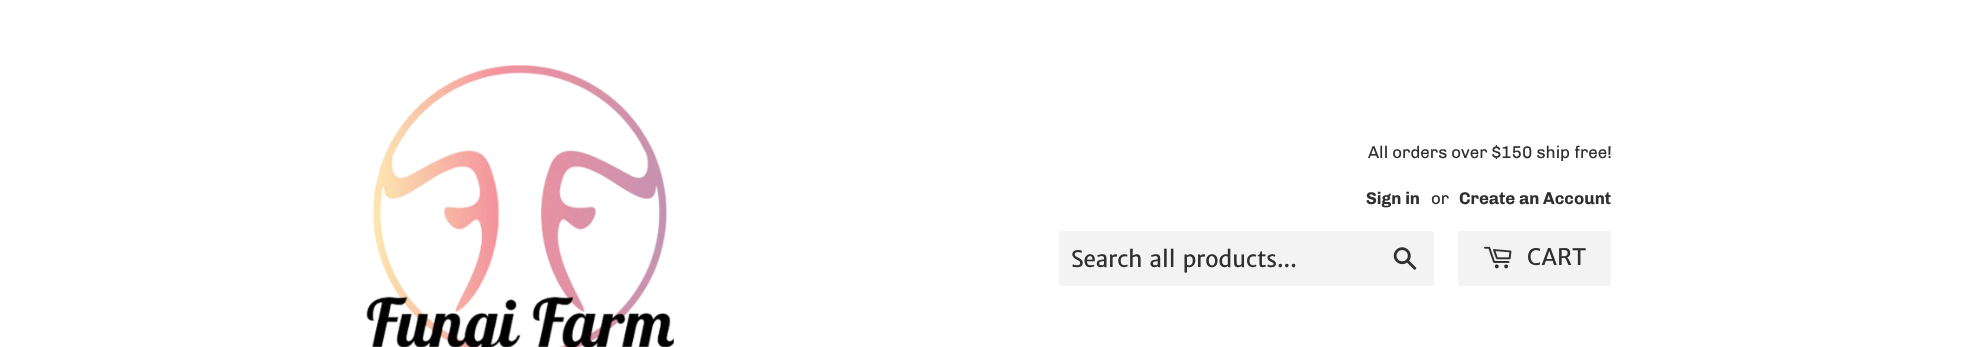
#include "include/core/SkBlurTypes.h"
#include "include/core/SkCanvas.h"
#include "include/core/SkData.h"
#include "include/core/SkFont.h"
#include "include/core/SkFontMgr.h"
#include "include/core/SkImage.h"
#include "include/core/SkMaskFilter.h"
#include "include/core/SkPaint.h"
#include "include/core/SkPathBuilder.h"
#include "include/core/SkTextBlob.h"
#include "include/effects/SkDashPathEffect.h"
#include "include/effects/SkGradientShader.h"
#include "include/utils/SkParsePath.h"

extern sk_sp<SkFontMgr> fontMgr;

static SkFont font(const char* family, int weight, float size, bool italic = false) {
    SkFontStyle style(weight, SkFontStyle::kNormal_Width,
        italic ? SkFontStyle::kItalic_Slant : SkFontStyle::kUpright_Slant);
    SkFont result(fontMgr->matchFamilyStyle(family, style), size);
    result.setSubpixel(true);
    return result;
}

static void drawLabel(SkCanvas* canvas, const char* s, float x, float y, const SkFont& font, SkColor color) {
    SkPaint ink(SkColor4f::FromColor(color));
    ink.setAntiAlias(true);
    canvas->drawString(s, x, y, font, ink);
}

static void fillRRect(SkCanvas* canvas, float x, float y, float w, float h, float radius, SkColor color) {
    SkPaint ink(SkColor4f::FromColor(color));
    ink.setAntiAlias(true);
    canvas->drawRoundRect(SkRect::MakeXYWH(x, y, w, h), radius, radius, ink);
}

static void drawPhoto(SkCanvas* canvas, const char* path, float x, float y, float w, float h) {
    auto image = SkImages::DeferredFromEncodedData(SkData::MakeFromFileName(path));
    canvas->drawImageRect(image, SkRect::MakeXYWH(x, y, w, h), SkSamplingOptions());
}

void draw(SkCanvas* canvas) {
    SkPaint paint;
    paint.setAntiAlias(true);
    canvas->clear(0xFFFFFFFF);
    drawPhoto(canvas, "assets/img1.png", 366, 65, 308, 282);
    SkFont font1 = font("Chivo", 400, 17);
    drawLabel(canvas, "All orders over $150 ship free!", 1368, 158, font1, 0xFF2F2F2F);
    SkFont font2 = font("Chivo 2", 400, 17);
    drawLabel(canvas, "Sign in", 1366, 204, font2, 0xFF2F2F2F);
    drawLabel(canvas, "or", 1431, 204, font1, 0xFF2F2F2F);
    drawLabel(canvas, "Create an Account", 1459, 204, font2, 0xFF2F2F2F);
    fillRRect(canvas, 1059, 231, 375, 55, 2.5f, 0xFFF3F3F3);
    SkFont font3 = font("Merriweather Sans", 400, 22.5f);
    drawLabel(canvas, "Search all products...", 1071, 267, font3, 0xFF2F2F2F);
    drawPhoto(canvas, "assets/img2.png", 1393, 247, 24, 23);
    fillRRect(canvas, 1458, 231, 153, 55, 2.5f, 0xFFF3F3F3);
    drawPhoto(canvas, "assets/img3.png", 1484, 246, 28, 23);
    drawLabel(canvas, "CART", 1527, 265, font3, 0xFF2F2F2F);
}
